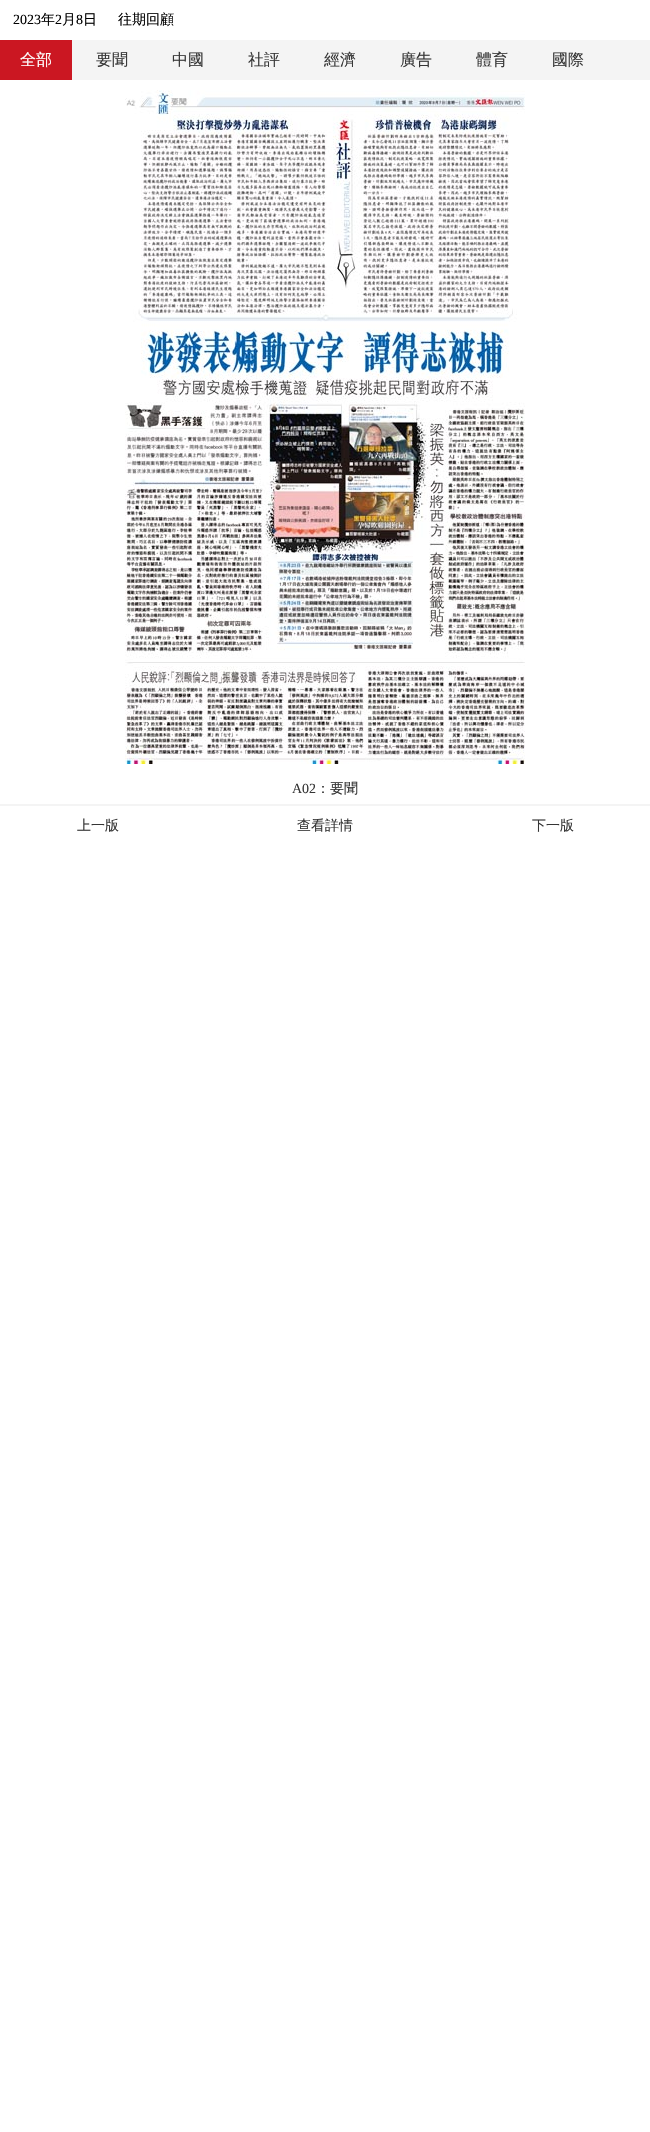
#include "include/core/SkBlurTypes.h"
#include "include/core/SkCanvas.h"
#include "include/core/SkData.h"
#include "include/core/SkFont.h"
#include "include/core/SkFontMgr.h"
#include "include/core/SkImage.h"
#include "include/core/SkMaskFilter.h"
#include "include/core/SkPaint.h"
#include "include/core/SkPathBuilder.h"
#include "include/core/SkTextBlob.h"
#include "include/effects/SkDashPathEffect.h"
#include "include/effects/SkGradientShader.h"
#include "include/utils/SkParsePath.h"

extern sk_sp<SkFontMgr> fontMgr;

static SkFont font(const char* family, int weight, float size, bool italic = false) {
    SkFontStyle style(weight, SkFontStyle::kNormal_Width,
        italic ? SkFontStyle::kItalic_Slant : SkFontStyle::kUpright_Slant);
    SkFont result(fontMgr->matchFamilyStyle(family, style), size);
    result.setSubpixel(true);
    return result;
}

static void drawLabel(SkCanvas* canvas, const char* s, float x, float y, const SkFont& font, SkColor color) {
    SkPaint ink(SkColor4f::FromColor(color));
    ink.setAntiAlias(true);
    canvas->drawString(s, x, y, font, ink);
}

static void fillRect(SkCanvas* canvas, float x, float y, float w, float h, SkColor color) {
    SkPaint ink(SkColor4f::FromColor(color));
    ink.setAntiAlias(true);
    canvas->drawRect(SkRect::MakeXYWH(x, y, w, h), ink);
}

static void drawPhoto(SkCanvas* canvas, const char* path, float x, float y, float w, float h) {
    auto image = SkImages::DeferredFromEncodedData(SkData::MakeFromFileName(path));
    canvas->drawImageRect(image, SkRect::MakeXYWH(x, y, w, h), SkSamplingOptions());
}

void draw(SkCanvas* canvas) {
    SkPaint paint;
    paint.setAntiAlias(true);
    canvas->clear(0xFFFFFFFF);
    SkFont font1 = font("Liberation Serif", 400, 14);
    drawLabel(canvas, "2023", 13, 24, font1, 0xFF000000);
    SkFont font2 = font("WenQuanYi Zen Hei", 500, 14);
    drawLabel(canvas, "年", 41, 24, font2, 0xFF000000);
    drawLabel(canvas, "2", 55, 24, font1, 0xFF000000);
    drawLabel(canvas, "月", 62, 24, font2, 0xFF000000);
    drawLabel(canvas, "8", 76, 24, font1, 0xFF000000);
    drawLabel(canvas, "日", 83, 24, font2, 0xFF000000);
    drawLabel(canvas, "往期回顧", 118, 24, font2, 0xFF000000);
    fillRect(canvas, 72, 40, 578, 40, 0xFFF4F4F4);
    fillRect(canvas, 0, 40, 72, 40, 0xFFCB1722);
    SkFont font3 = font("WenQuanYi Zen Hei", 500, 16);
    drawLabel(canvas, "全部", 20, 65, font3, 0xFFFFFFFF);
    drawLabel(canvas, "要聞", 96, 65, font3, 0xFF353535);
    drawLabel(canvas, "中國", 172, 65, font3, 0xFF353535);
    drawLabel(canvas, "社評", 248, 65, font3, 0xFF353535);
    drawLabel(canvas, "經濟", 324, 65, font3, 0xFF353535);
    drawLabel(canvas, "廣告", 400, 65, font3, 0xFF353535);
    drawLabel(canvas, "體育", 476, 65, font3, 0xFF353535);
    drawLabel(canvas, "國際", 552, 65, font3, 0xFF353535);
    drawPhoto(canvas, "assets/img1.png", 125, 90, 400, 674);
    drawLabel(canvas, "A02", 292, 793, font1, 0xFF353535);
    drawLabel(canvas, "：要聞", 316, 793, font2, 0xFF353535);
    fillRect(canvas, 0, 804, 650, 2, 0xFFF4F4F4);
    drawLabel(canvas, "上一版", 77, 830, font2, 0xFF353535);
    drawLabel(canvas, "查看詳情", 297, 830, font2, 0xFF353535);
    drawLabel(canvas, "下一版", 532, 830, font2, 0xFF353535);
}
